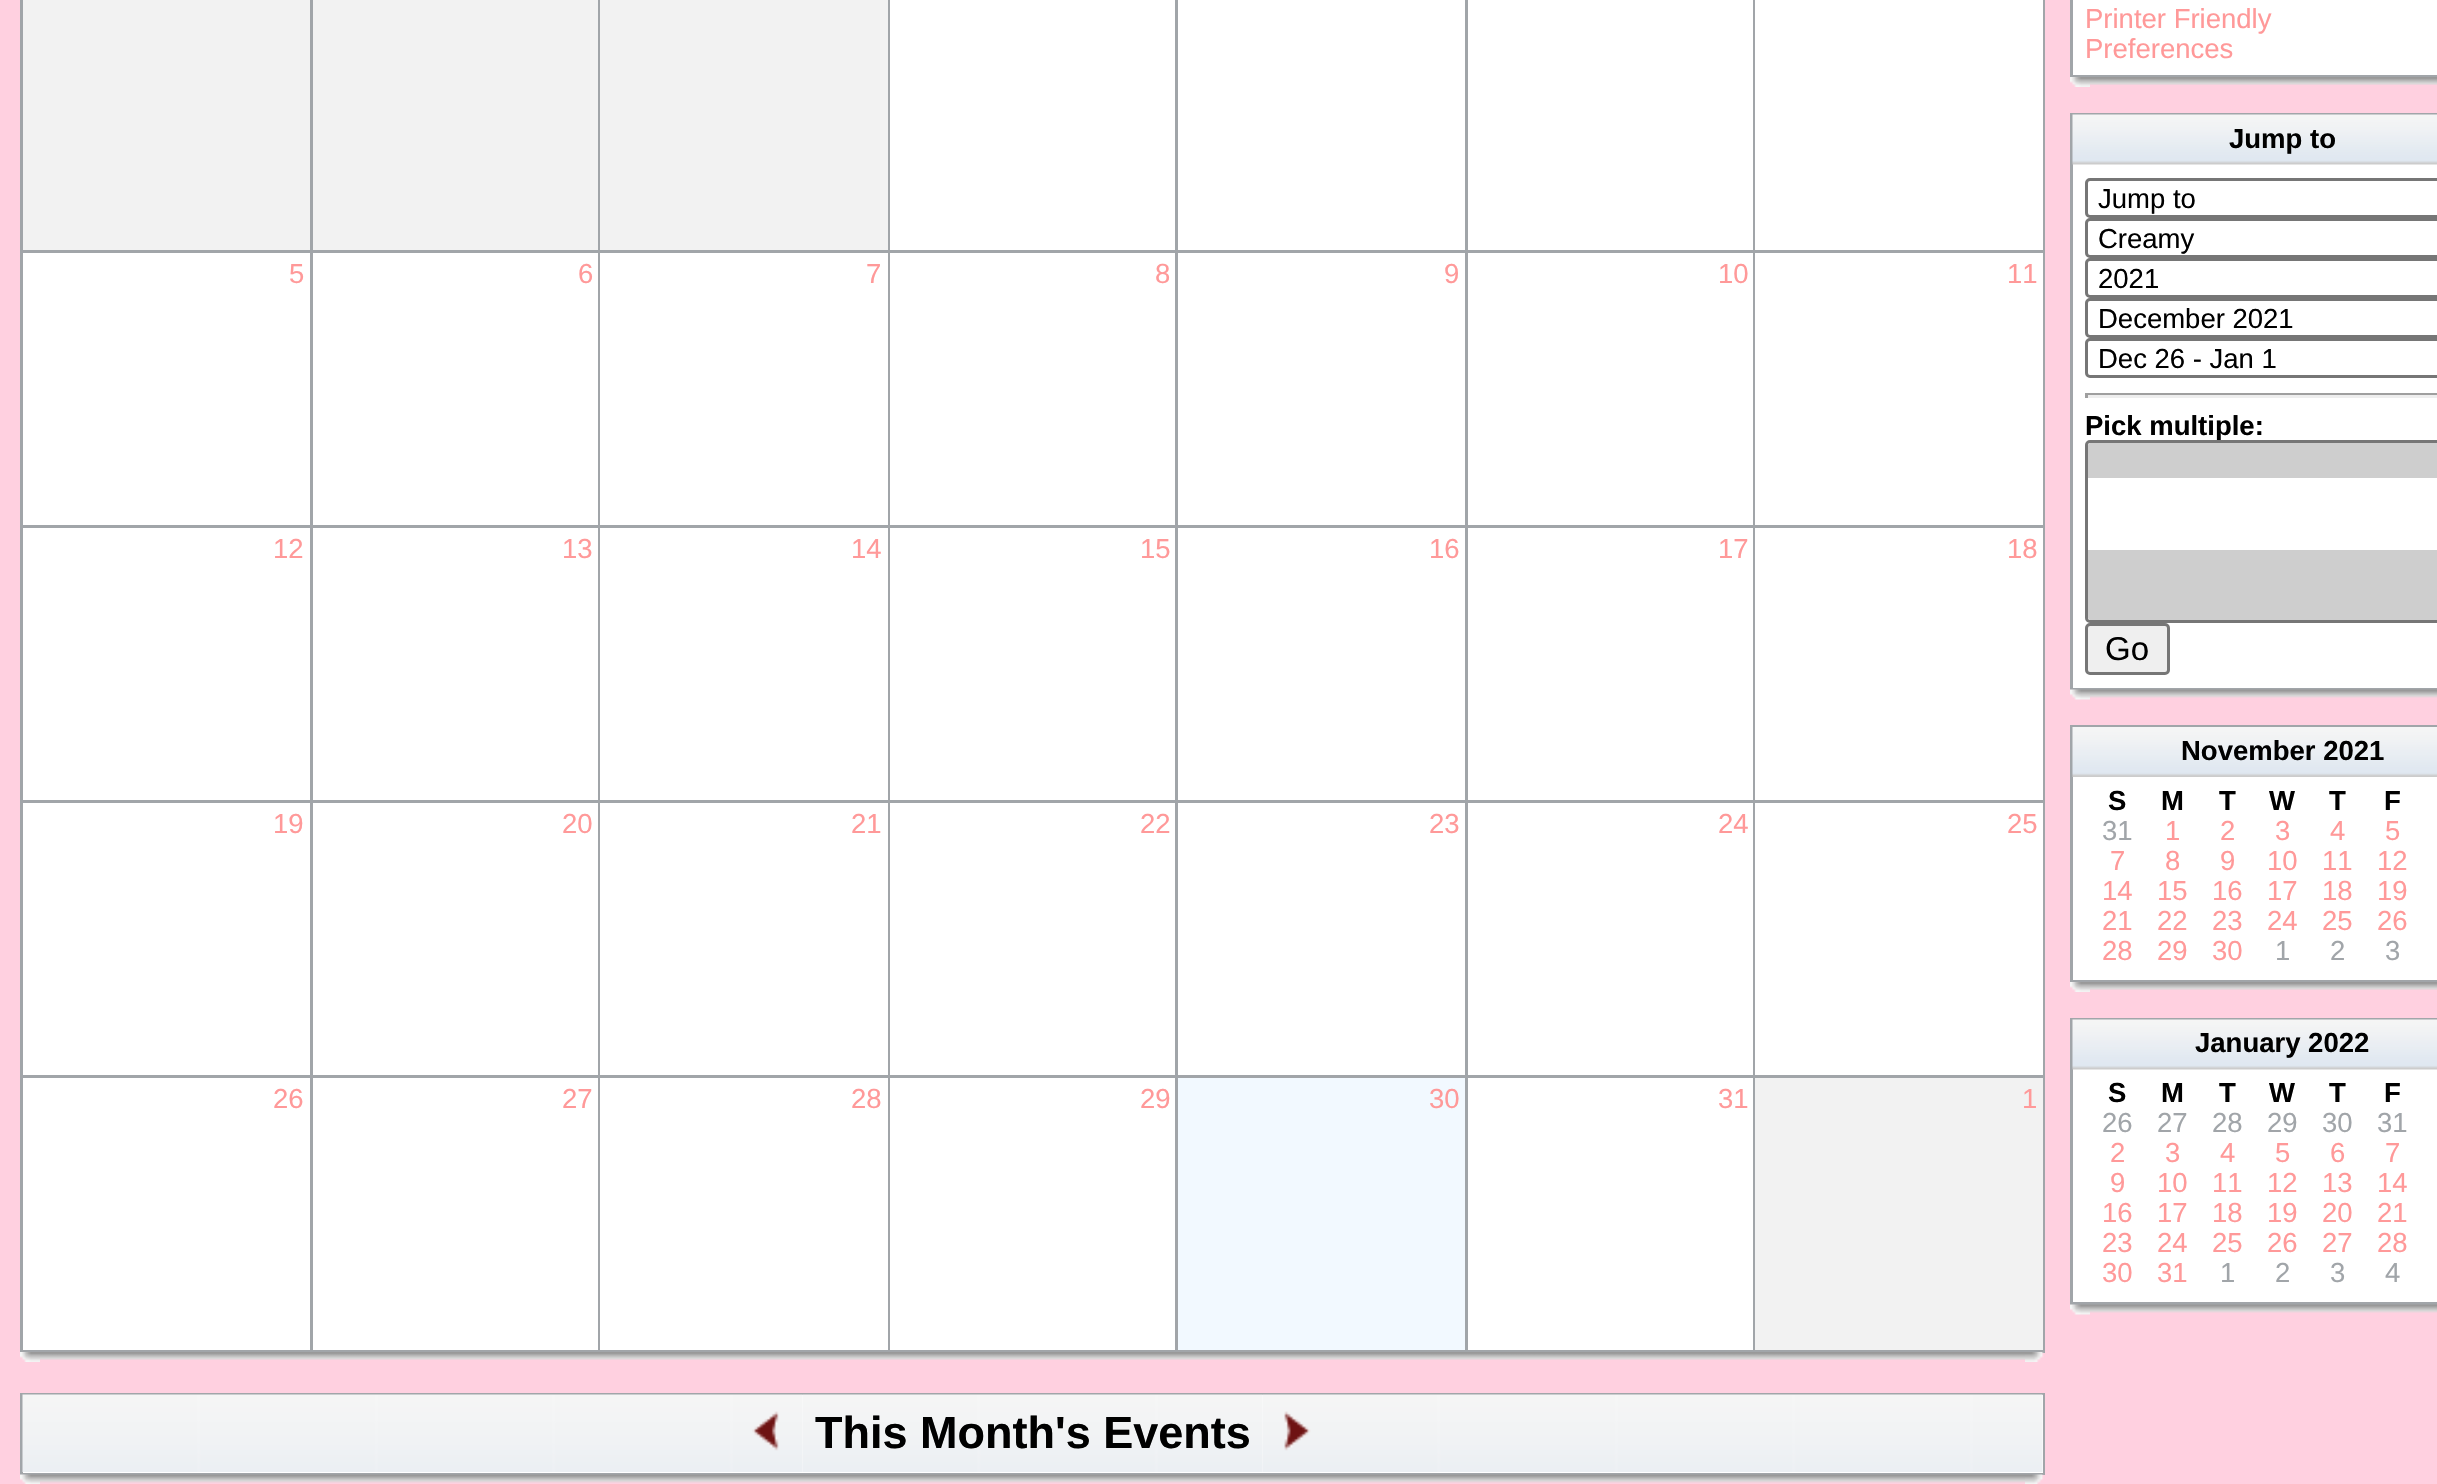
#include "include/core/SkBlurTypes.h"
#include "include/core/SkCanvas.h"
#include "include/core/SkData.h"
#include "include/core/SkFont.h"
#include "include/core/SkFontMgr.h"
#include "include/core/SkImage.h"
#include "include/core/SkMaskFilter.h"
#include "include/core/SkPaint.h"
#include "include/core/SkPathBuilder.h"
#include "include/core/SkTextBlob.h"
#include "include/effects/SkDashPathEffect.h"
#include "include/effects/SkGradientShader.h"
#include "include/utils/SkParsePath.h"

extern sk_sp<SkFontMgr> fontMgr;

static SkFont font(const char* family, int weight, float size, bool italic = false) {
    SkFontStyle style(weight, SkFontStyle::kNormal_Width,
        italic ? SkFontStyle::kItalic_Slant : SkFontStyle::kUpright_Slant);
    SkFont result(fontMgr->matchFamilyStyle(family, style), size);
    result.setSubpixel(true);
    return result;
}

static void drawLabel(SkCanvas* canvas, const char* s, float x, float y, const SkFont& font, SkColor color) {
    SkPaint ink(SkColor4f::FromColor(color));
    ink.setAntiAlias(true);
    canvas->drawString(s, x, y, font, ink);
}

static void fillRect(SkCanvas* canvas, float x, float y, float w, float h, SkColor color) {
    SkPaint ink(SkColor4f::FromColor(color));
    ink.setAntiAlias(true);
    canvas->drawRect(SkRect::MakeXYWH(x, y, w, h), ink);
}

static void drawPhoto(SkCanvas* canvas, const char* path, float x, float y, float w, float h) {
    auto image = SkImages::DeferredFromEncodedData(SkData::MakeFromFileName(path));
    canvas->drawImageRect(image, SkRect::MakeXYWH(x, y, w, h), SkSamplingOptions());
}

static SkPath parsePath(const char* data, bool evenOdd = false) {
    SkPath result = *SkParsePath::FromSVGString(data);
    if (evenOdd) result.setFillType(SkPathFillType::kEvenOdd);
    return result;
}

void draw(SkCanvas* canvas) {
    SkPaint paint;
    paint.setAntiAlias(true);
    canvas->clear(0xFFFFD0E0);
    fillRect(canvas, 20, 0, 2025, 1353, 0xFFA1A5A9);
    fillRect(canvas, 23, 0, 287, 250, 0xFFF2F2F2);
    fillRect(canvas, 313, 0, 285, 250, 0xFFF2F2F2);
    fillRect(canvas, 600, 0, 288, 250, 0xFFF2F2F2);
    fillRect(canvas, 890, 0, 285, 250, 0xFFFFFFFF);
    fillRect(canvas, 1178, 0, 287, 250, 0xFFFFFFFF);
    fillRect(canvas, 1468, 0, 285, 250, 0xFFFFFFFF);
    fillRect(canvas, 1755, 0, 288, 250, 0xFFFFFFFF);
    fillRect(canvas, 23, 253, 287, 272, 0xFFFFFFFF);
    SkFont font1 = font("Liberation Sans", 400, 27.5f);
    drawLabel(canvas, "5", 289, 283, font1, 0xFFFF9999);
    fillRect(canvas, 313, 253, 285, 272, 0xFFFFFFFF);
    drawLabel(canvas, "6", 578, 283, font1, 0xFFFF9999);
    fillRect(canvas, 600, 253, 288, 272, 0xFFFFFFFF);
    drawLabel(canvas, "7", 866, 283, font1, 0xFFFF9999);
    fillRect(canvas, 890, 253, 285, 272, 0xFFFFFFFF);
    drawLabel(canvas, "8", 1155, 283, font1, 0xFFFF9999);
    fillRect(canvas, 1178, 253, 287, 272, 0xFFFFFFFF);
    drawLabel(canvas, "9", 1444, 283, font1, 0xFFFF9999);
    fillRect(canvas, 1468, 253, 285, 272, 0xFFFFFFFF);
    drawLabel(canvas, "10", 1718, 283, font1, 0xFFFF9999);
    fillRect(canvas, 1755, 253, 288, 272, 0xFFFFFFFF);
    drawLabel(canvas, "11", 2007, 283, font1, 0xFFFF9999);
    fillRect(canvas, 23, 528, 287, 272, 0xFFFFFFFF);
    drawLabel(canvas, "12", 273, 558, font1, 0xFFFF9999);
    fillRect(canvas, 313, 528, 285, 272, 0xFFFFFFFF);
    drawLabel(canvas, "13", 562, 558, font1, 0xFFFF9999);
    fillRect(canvas, 600, 528, 288, 272, 0xFFFFFFFF);
    drawLabel(canvas, "14", 851, 558, font1, 0xFFFF9999);
    fillRect(canvas, 890, 528, 285, 272, 0xFFFFFFFF);
    drawLabel(canvas, "15", 1140, 558, font1, 0xFFFF9999);
    fillRect(canvas, 1178, 528, 287, 272, 0xFFFFFFFF);
    drawLabel(canvas, "16", 1429, 558, font1, 0xFFFF9999);
    fillRect(canvas, 1468, 528, 285, 272, 0xFFFFFFFF);
    drawLabel(canvas, "17", 1718, 558, font1, 0xFFFF9999);
    fillRect(canvas, 1755, 528, 288, 272, 0xFFFFFFFF);
    drawLabel(canvas, "18", 2007, 558, font1, 0xFFFF9999);
    fillRect(canvas, 23, 803, 287, 272, 0xFFFFFFFF);
    drawLabel(canvas, "19", 273, 833, font1, 0xFFFF9999);
    fillRect(canvas, 313, 803, 285, 272, 0xFFFFFFFF);
    drawLabel(canvas, "20", 562, 833, font1, 0xFFFF9999);
    fillRect(canvas, 600, 803, 288, 272, 0xFFFFFFFF);
    drawLabel(canvas, "21", 851, 833, font1, 0xFFFF9999);
    fillRect(canvas, 890, 803, 285, 272, 0xFFFFFFFF);
    drawLabel(canvas, "22", 1140, 833, font1, 0xFFFF9999);
    fillRect(canvas, 1178, 803, 287, 272, 0xFFFFFFFF);
    drawLabel(canvas, "23", 1429, 833, font1, 0xFFFF9999);
    fillRect(canvas, 1468, 803, 285, 272, 0xFFFFFFFF);
    drawLabel(canvas, "24", 1718, 833, font1, 0xFFFF9999);
    fillRect(canvas, 1755, 803, 288, 272, 0xFFFFFFFF);
    drawLabel(canvas, "25", 2007, 833, font1, 0xFFFF9999);
    fillRect(canvas, 23, 1078, 287, 272, 0xFFFFFFFF);
    drawLabel(canvas, "26", 273, 1108, font1, 0xFFFF9999);
    fillRect(canvas, 313, 1078, 285, 272, 0xFFFFFFFF);
    drawLabel(canvas, "27", 562, 1108, font1, 0xFFFF9999);
    fillRect(canvas, 600, 1078, 288, 272, 0xFFFFFFFF);
    drawLabel(canvas, "28", 851, 1108, font1, 0xFFFF9999);
    fillRect(canvas, 890, 1078, 285, 272, 0xFFFFFFFF);
    drawLabel(canvas, "29", 1140, 1108, font1, 0xFFFF9999);
    fillRect(canvas, 1178, 1078, 287, 272, 0xFFF2F9FF);
    drawLabel(canvas, "30", 1429, 1108, font1, 0xFFFF9999);
    fillRect(canvas, 1468, 1078, 285, 272, 0xFFFFFFFF);
    drawLabel(canvas, "31", 1718, 1108, font1, 0xFFFF9999);
    fillRect(canvas, 1755, 1078, 288, 272, 0xFFF2F2F2);
    drawLabel(canvas, "1", 2022, 1108, font1, 0xFFFF9999);
    drawPhoto(canvas, "assets/img1.png", 20, 1352, 20, 10);
    drawPhoto(canvas, "assets/img2.png", 40, 1352, 1985, 8);
    drawPhoto(canvas, "assets/img3.png", 2025, 1352, 19, 10);
    paint.setStroke(true);
    paint.setStrokeWidth(3);
    paint.setColor(0xFFA1A5A9);
    canvas->drawRect(SkRect::MakeXYWH(21.5f, 1394.5f, 2022, 79), paint);
    fillRect(canvas, 23, 1395, 2020, 78, 0xFFFFFFFF);
    drawPhoto(canvas, "assets/img4.png", 22, 1394, 781, 78);
    drawPhoto(canvas, "assets/img5.png", 752, 1411, 27, 40);
    drawPhoto(canvas, "assets/img6.png", 802, 1394, 461, 78);
    SkFont font2 = font("Liberation Sans", 700, 45);
    drawLabel(canvas, "This Month's Events", 815, 1448, font2, 0xFF000000);
    drawPhoto(canvas, "assets/img7.png", 1262, 1394, 781, 78);
    drawPhoto(canvas, "assets/img8.png", 1284, 1411, 27, 40);
    drawPhoto(canvas, "assets/img9.png", 20, 1474, 20, 10);
    drawPhoto(canvas, "assets/img10.png", 40, 1474, 1985, 9);
    drawPhoto(canvas, "assets/img11.png", 2025, 1474, 19, 10);
    paint.setStroke(false);
    paint.setColor(0xFFFFFFFF);
    canvas->drawRect(SkRect::MakeXYWH(2071.5f, -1.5f, 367, 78), paint);
    paint.setStroke(true);
    paint.setColor(0xFFA1A5A9);
    canvas->drawRect(SkRect::MakeXYWH(2071.5f, -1.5f, 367, 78), paint);
    drawLabel(canvas, "Printer Friendly", 2085, 28, font1, 0xFFFF9999);
    drawLabel(canvas, "Preferences", 2085, 58, font1, 0xFFFF9999);
    drawPhoto(canvas, "assets/img12.png", 2070, 77, 20, 10);
    drawPhoto(canvas, "assets/img13.png", 2090, 77, 347, 8);
    fillRect(canvas, 2073, 164, 364, 1, 0xFFFFFFFF);
    canvas->drawRect(SkRect::MakeXYWH(2071.5f, 114.5f, 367, 574), paint);
    drawPhoto(canvas, "assets/img14.png", 2072, 114, 365, 51);
    SkFont font3 = font("Liberation Sans", 700, 27.5f);
    drawLabel(canvas, "Jump to", 2229, 148, font3, 0xFF000000);
    fillRect(canvas, 2073, 165, 364, 523, 0xFFFFFFFF);
    paint.setColor(0xFF767676);
    canvas->drawRoundRect(SkRect::MakeXYWH(2086.5f, 179.5f, 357, 37), 3.5f, 3.5f, paint);
    drawLabel(canvas, "Jump to", 2098, 208, font1, 0xFF000000);
    canvas->drawRoundRect(SkRect::MakeXYWH(2086.5f, 219.5f, 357, 37), 3.5f, 3.5f, paint);
    drawLabel(canvas, "Creamy", 2098, 248, font1, 0xFF000000);
    canvas->drawRoundRect(SkRect::MakeXYWH(2086.5f, 259.5f, 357, 37), 3.5f, 3.5f, paint);
    drawLabel(canvas, "2021", 2098, 288, font1, 0xFF000000);
    canvas->drawRoundRect(SkRect::MakeXYWH(2086.5f, 299.5f, 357, 37), 3.5f, 3.5f, paint);
    drawLabel(canvas, "December 2021", 2098, 328, font1, 0xFF000000);
    canvas->drawRoundRect(SkRect::MakeXYWH(2086.5f, 339.5f, 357, 37), 3.5f, 3.5f, paint);
    drawLabel(canvas, "Dec 26 - Jan 1", 2098, 368, font1, 0xFF000000);
    fillRect(canvas, 2085, 393, 352, 2, 0xFF9F9F9F);
    fillRect(canvas, 2085, 395, 352, 3, 0xFFEEEEEE);
    fillRect(canvas, 2085, 393, 3, 5, 0xFF9F9F9F);
    drawLabel(canvas, "Pick multiple:", 2085, 435, font3, 0xFF000000);
    paint.setStroke(false);
    paint.setColor(0xFFFFFFFF);
    canvas->drawRoundRect(SkRect::MakeXYWH(2086.5f, 441.5f, 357, 180), 3.5f, 3.5f, paint);
    paint.setStroke(true);
    paint.setColor(0xFF767676);
    canvas->drawRoundRect(SkRect::MakeXYWH(2086.5f, 441.5f, 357, 180), 3.5f, 3.5f, paint);
    paint.setStroke(false);
    paint.setColor(0xFFCECECE);
    canvas->drawPath(parsePath("M2090.5 443H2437.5C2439 443 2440 444 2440 445.5V478H2088V445.5C2088 444 2089 443 2090.5 443Z"), paint);
    fillRect(canvas, 2088, 550, 349, 35, 0xFFCECECE);
    canvas->drawPath(parsePath("M2088 585H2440V617.5C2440 619 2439 620 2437.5 620H2090.5C2089 620 2088 619 2088 617.5Z"), paint);
    paint.setColor(0xFFEFEFEF);
    canvas->drawRoundRect(SkRect::MakeXYWH(2086.5f, 624.5f, 82, 49), 3.5f, 3.5f, paint);
    paint.setStroke(true);
    paint.setColor(0xFF767676);
    canvas->drawRoundRect(SkRect::MakeXYWH(2086.5f, 624.5f, 82, 49), 3.5f, 3.5f, paint);
    SkFont font4 = font("Liberation Sans", 400, 33);
    drawLabel(canvas, "Go", 2105, 660, font4, 0xFF000000);
    drawPhoto(canvas, "assets/img15.png", 2070, 689, 20, 11);
    drawPhoto(canvas, "assets/img16.png", 2090, 689, 347, 9);
    fillRect(canvas, 2073, 777, 364, 203, 0xFFFFFFFF);
    paint.setColor(0xFFA1A5A9);
    canvas->drawRect(SkRect::MakeXYWH(2071.5f, 726.5f, 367, 255), paint);
    drawPhoto(canvas, "assets/img17.png", 2072, 727, 365, 50);
    drawLabel(canvas, "November 2021", 2181, 760, font3, 0xFF000000);
    drawLabel(canvas, "S", 2108, 810, font3, 0xFF000000);
    drawLabel(canvas, "M", 2161, 810, font3, 0xFF000000);
    drawLabel(canvas, "T", 2219, 810, font3, 0xFF000000);
    drawLabel(canvas, "W", 2269, 810, font3, 0xFF000000);
    drawLabel(canvas, "T", 2329, 810, font3, 0xFF000000);
    drawLabel(canvas, "F", 2384, 810, font3, 0xFF000000);
    drawLabel(canvas, "31", 2102, 840, font1, 0xFFA1A5A9);
    drawLabel(canvas, "1", 2165, 840, font1, 0xFFFF9999);
    drawLabel(canvas, "2", 2220, 840, font1, 0xFFFF9999);
    drawLabel(canvas, "3", 2275, 840, font1, 0xFFFF9999);
    drawLabel(canvas, "4", 2330, 840, font1, 0xFFFF9999);
    drawLabel(canvas, "5", 2385, 840, font1, 0xFFFF9999);
    drawLabel(canvas, "7", 2110, 870, font1, 0xFFFF9999);
    drawLabel(canvas, "8", 2165, 870, font1, 0xFFFF9999);
    drawLabel(canvas, "9", 2220, 870, font1, 0xFFFF9999);
    drawLabel(canvas, "10", 2267, 870, font1, 0xFFFF9999);
    drawLabel(canvas, "11", 2322, 870, font1, 0xFFFF9999);
    drawLabel(canvas, "12", 2377, 870, font1, 0xFFFF9999);
    drawLabel(canvas, "14", 2102, 900, font1, 0xFFFF9999);
    drawLabel(canvas, "15", 2157, 900, font1, 0xFFFF9999);
    drawLabel(canvas, "16", 2212, 900, font1, 0xFFFF9999);
    drawLabel(canvas, "17", 2267, 900, font1, 0xFFFF9999);
    drawLabel(canvas, "18", 2322, 900, font1, 0xFFFF9999);
    drawLabel(canvas, "19", 2377, 900, font1, 0xFFFF9999);
    drawLabel(canvas, "21", 2102, 930, font1, 0xFFFF9999);
    drawLabel(canvas, "22", 2157, 930, font1, 0xFFFF9999);
    drawLabel(canvas, "23", 2212, 930, font1, 0xFFFF9999);
    drawLabel(canvas, "24", 2267, 930, font1, 0xFFFF9999);
    drawLabel(canvas, "25", 2322, 930, font1, 0xFFFF9999);
    drawLabel(canvas, "26", 2377, 930, font1, 0xFFFF9999);
    drawLabel(canvas, "28", 2102, 960, font1, 0xFFFF9999);
    drawLabel(canvas, "29", 2157, 960, font1, 0xFFFF9999);
    drawLabel(canvas, "30", 2212, 960, font1, 0xFFFF9999);
    drawLabel(canvas, "1", 2275, 960, font1, 0xFFA1A5A9);
    drawLabel(canvas, "2", 2330, 960, font1, 0xFFA1A5A9);
    drawLabel(canvas, "3", 2385, 960, font1, 0xFFA1A5A9);
    drawPhoto(canvas, "assets/img12.png", 2070, 982, 20, 10);
    drawPhoto(canvas, "assets/img18.png", 2090, 982, 347, 8);
    fillRect(canvas, 2073, 1069, 364, 233, 0xFFFFFFFF);
    canvas->drawRect(SkRect::MakeXYWH(2071.5f, 1019.5f, 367, 284), paint);
    drawPhoto(canvas, "assets/img19.png", 2072, 1019, 365, 51);
    drawLabel(canvas, "January 2022", 2195, 1052, font3, 0xFF000000);
    drawLabel(canvas, "S", 2108, 1102, font3, 0xFF000000);
    drawLabel(canvas, "M", 2161, 1102, font3, 0xFF000000);
    drawLabel(canvas, "T", 2219, 1102, font3, 0xFF000000);
    drawLabel(canvas, "W", 2269, 1102, font3, 0xFF000000);
    drawLabel(canvas, "T", 2329, 1102, font3, 0xFF000000);
    drawLabel(canvas, "F", 2384, 1102, font3, 0xFF000000);
    drawLabel(canvas, "26", 2102, 1132, font1, 0xFFA1A5A9);
    drawLabel(canvas, "27", 2157, 1132, font1, 0xFFA1A5A9);
    drawLabel(canvas, "28", 2212, 1132, font1, 0xFFA1A5A9);
    drawLabel(canvas, "29", 2267, 1132, font1, 0xFFA1A5A9);
    drawLabel(canvas, "30", 2322, 1132, font1, 0xFFA1A5A9);
    drawLabel(canvas, "31", 2377, 1132, font1, 0xFFA1A5A9);
    drawLabel(canvas, "2", 2110, 1162, font1, 0xFFFF9999);
    drawLabel(canvas, "3", 2165, 1162, font1, 0xFFFF9999);
    drawLabel(canvas, "4", 2220, 1162, font1, 0xFFFF9999);
    drawLabel(canvas, "5", 2275, 1162, font1, 0xFFFF9999);
    drawLabel(canvas, "6", 2330, 1162, font1, 0xFFFF9999);
    drawLabel(canvas, "7", 2385, 1162, font1, 0xFFFF9999);
    drawLabel(canvas, "9", 2110, 1192, font1, 0xFFFF9999);
    drawLabel(canvas, "10", 2157, 1192, font1, 0xFFFF9999);
    drawLabel(canvas, "11", 2212, 1192, font1, 0xFFFF9999);
    drawLabel(canvas, "12", 2267, 1192, font1, 0xFFFF9999);
    drawLabel(canvas, "13", 2322, 1192, font1, 0xFFFF9999);
    drawLabel(canvas, "14", 2377, 1192, font1, 0xFFFF9999);
    drawLabel(canvas, "16", 2102, 1222, font1, 0xFFFF9999);
    drawLabel(canvas, "17", 2157, 1222, font1, 0xFFFF9999);
    drawLabel(canvas, "18", 2212, 1222, font1, 0xFFFF9999);
    drawLabel(canvas, "19", 2267, 1222, font1, 0xFFFF9999);
    drawLabel(canvas, "20", 2322, 1222, font1, 0xFFFF9999);
    drawLabel(canvas, "21", 2377, 1222, font1, 0xFFFF9999);
    drawLabel(canvas, "23", 2102, 1252, font1, 0xFFFF9999);
    drawLabel(canvas, "24", 2157, 1252, font1, 0xFFFF9999);
    drawLabel(canvas, "25", 2212, 1252, font1, 0xFFFF9999);
    drawLabel(canvas, "26", 2267, 1252, font1, 0xFFFF9999);
    drawLabel(canvas, "27", 2322, 1252, font1, 0xFFFF9999);
    drawLabel(canvas, "28", 2377, 1252, font1, 0xFFFF9999);
    drawLabel(canvas, "30", 2102, 1282, font1, 0xFFFF9999);
    drawLabel(canvas, "31", 2157, 1282, font1, 0xFFFF9999);
    drawLabel(canvas, "1", 2220, 1282, font1, 0xFFA1A5A9);
    drawLabel(canvas, "2", 2275, 1282, font1, 0xFFA1A5A9);
    drawLabel(canvas, "3", 2330, 1282, font1, 0xFFA1A5A9);
    drawLabel(canvas, "4", 2385, 1282, font1, 0xFFA1A5A9);
    drawPhoto(canvas, "assets/img15.png", 2070, 1304, 20, 11);
    drawPhoto(canvas, "assets/img20.png", 2090, 1304, 347, 9);
}
